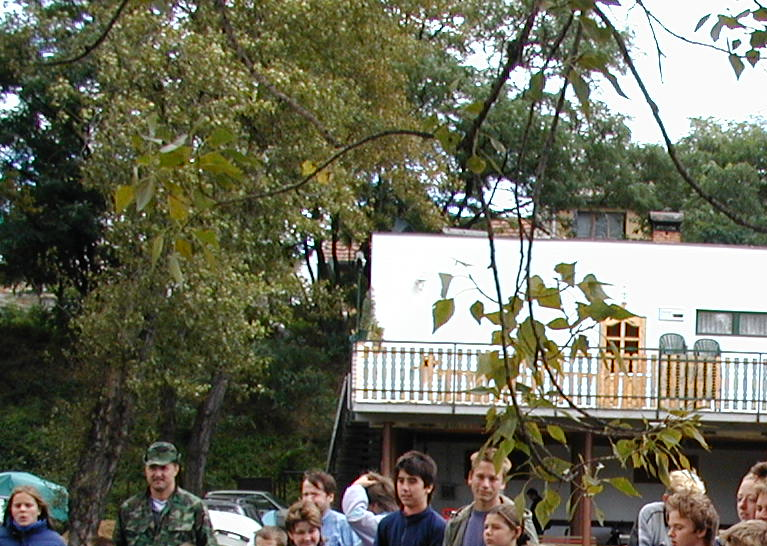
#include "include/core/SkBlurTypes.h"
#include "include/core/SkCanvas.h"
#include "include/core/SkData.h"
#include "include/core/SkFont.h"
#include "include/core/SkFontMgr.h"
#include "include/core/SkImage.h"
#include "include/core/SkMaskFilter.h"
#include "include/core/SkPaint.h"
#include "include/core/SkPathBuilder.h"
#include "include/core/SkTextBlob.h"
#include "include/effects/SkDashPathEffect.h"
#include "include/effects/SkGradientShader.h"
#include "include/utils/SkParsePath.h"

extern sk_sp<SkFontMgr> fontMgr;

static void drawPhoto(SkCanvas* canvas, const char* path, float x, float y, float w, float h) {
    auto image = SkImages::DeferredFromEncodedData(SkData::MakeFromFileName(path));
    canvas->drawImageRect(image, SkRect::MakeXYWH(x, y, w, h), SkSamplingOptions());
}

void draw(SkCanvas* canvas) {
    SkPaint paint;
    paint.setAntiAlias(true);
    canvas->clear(0xFFFFFFFF);
    drawPhoto(canvas, "assets/img1.png", 0, 0, 767, 546);
}
